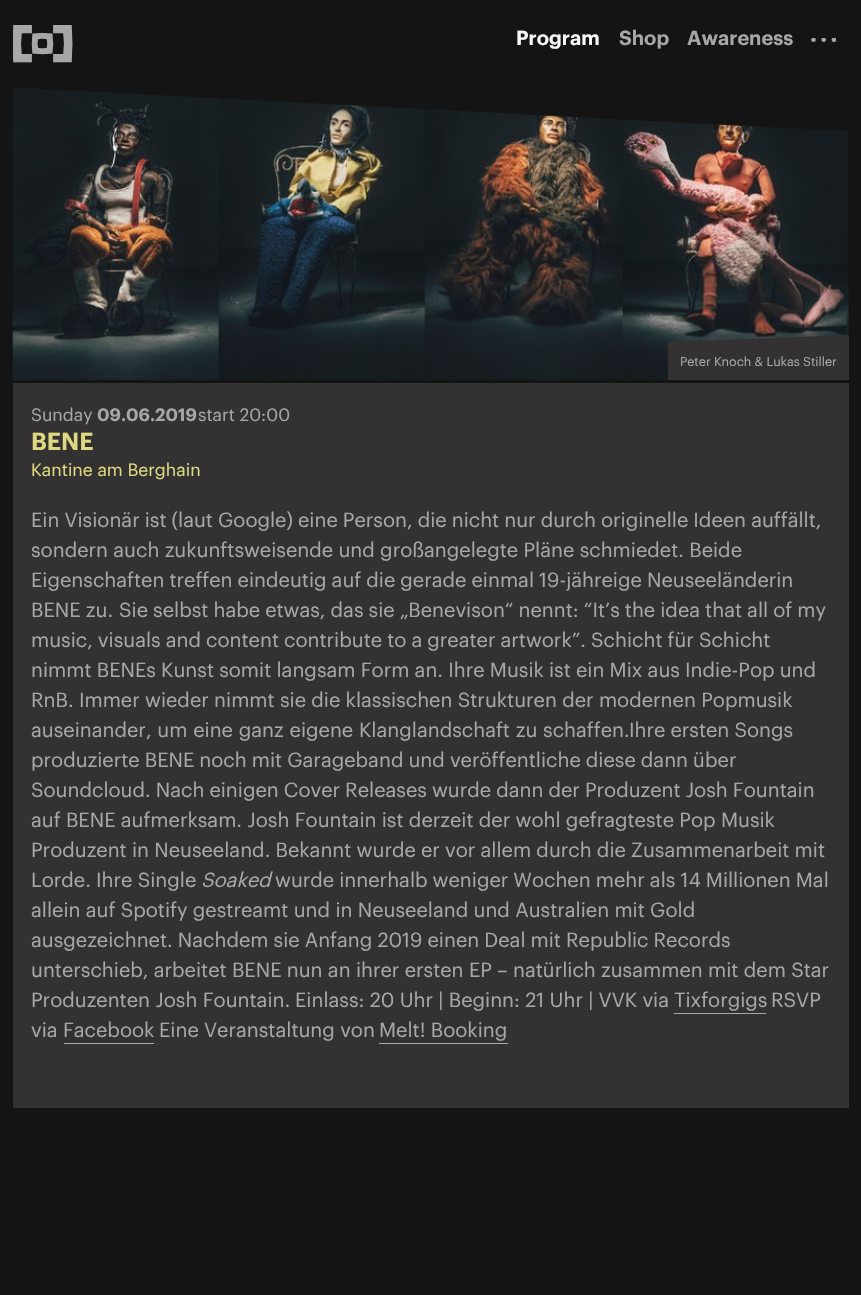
#include "include/core/SkBlurTypes.h"
#include "include/core/SkCanvas.h"
#include "include/core/SkData.h"
#include "include/core/SkFont.h"
#include "include/core/SkFontMgr.h"
#include "include/core/SkImage.h"
#include "include/core/SkMaskFilter.h"
#include "include/core/SkPaint.h"
#include "include/core/SkPathBuilder.h"
#include "include/core/SkTextBlob.h"
#include "include/effects/SkDashPathEffect.h"
#include "include/effects/SkGradientShader.h"
#include "include/utils/SkParsePath.h"

extern sk_sp<SkFontMgr> fontMgr;

static SkFont font(const char* family, int weight, float size, bool italic = false) {
    SkFontStyle style(weight, SkFontStyle::kNormal_Width,
        italic ? SkFontStyle::kItalic_Slant : SkFontStyle::kUpright_Slant);
    SkFont result(fontMgr->matchFamilyStyle(family, style), size);
    result.setSubpixel(true);
    return result;
}

static void drawLabel(SkCanvas* canvas, const char* s, float x, float y, const SkFont& font, SkColor color) {
    SkPaint ink(SkColor4f::FromColor(color));
    ink.setAntiAlias(true);
    canvas->drawString(s, x, y, font, ink);
}

static void drawTracked(SkCanvas* canvas, const char* s, float x, float y, const SkFont& font, const SkPaint& ink, float letter, float word) {
    std::vector<SkGlyphID> glyphs(font.countText(s, strlen(s), SkTextEncoding::kUTF8));
    std::vector<float> xs(glyphs.size());
    font.textToGlyphs(s, strlen(s), SkTextEncoding::kUTF8, glyphs);
    font.getXPos(glyphs, xs, x);
    float extra = 0;
    for (size_t i = 0; i < glyphs.size(); i++) {
        xs[i] += extra;
        extra += letter + word * (glyphs[i] == font.unicharToGlyph(' '));
    }
    canvas->drawTextBlob(SkTextBlob::MakeFromPosHGlyphs(glyphs, xs, y, font), 0, 0, ink);
}

static void fillRect(SkCanvas* canvas, float x, float y, float w, float h, SkColor color) {
    SkPaint ink(SkColor4f::FromColor(color));
    ink.setAntiAlias(true);
    canvas->drawRect(SkRect::MakeXYWH(x, y, w, h), ink);
}

static void drawPhoto(SkCanvas* canvas, const char* path, float x, float y, float w, float h) {
    auto image = SkImages::DeferredFromEncodedData(SkData::MakeFromFileName(path));
    canvas->drawImageRect(image, SkRect::MakeXYWH(x, y, w, h), SkSamplingOptions());
}

static SkPath parsePath(const char* data, bool evenOdd = false) {
    SkPath result = *SkParsePath::FromSVGString(data);
    if (evenOdd) result.setFillType(SkPathFillType::kEvenOdd);
    return result;
}

void draw(SkCanvas* canvas) {
    SkPaint paint;
    paint.setAntiAlias(true);
    canvas->clear(0xFF141414);
    drawPhoto(canvas, "assets/img1.png", 13, 25, 60, 38);
    SkFont font1 = font("Graphik", 600, 20);
    drawLabel(canvas, "Program", 516, 45, font1, 0xFFF7F7F7);
    drawLabel(canvas, "Shop", 619, 45, font1, 0xFFA7A7A7);
    drawLabel(canvas, "Awareness", 687, 45, font1, 0xFFA7A7A7);
    canvas->save();
    canvas->clipRect(SkRect::MakeXYWH(811, 38, 25, 5));
    paint.setColor(0xFFA7A7A7);
    canvas->drawCircle(813.5f, 39.8f, 2.3f, paint);
    canvas->drawCircle(823.7f, 39.8f, 2.3f, paint);
    canvas->drawCircle(833.9f, 39.8f, 2.3f, paint);
    canvas->restore();
    drawPhoto(canvas, "assets/img2.png", 12, 88, 837, 292);
    fillRect(canvas, 668, 341, 181, 39, 0xFF333131);
    paint.setColor(0xFF333131);
    canvas->drawPath(parsePath("M668 342V344H849V335Z"), paint);
    SkFont font2 = font("Graphik", 400, 12.5f);
    drawLabel(canvas, "Peter Knoch & Lukas Stiller", 680, 366, font2, 0xFFA7A7A7);
    fillRect(canvas, 13, 383, 836, 725, 0xFF333131);
    SkFont font3 = font("Graphik", 400, 17.5f);
    drawLabel(canvas, "Sunday", 31, 421, font3, 0xFFA7A7A7);
    SkFont font4 = font("Graphik", 600, 17.5f);
    drawLabel(canvas, "09.06.2019", 97, 421, font4, 0xFFA7A7A7);
    drawLabel(canvas, "start 20:00", 198, 421, font3, 0xFFA7A7A7);
    SkFont font5 = font("Graphik", 600, 24);
    drawLabel(canvas, "BENE", 31, 450, font5, 0xFFDED981);
    drawLabel(canvas, "Kantine am Berghain", 31, 476, font3, 0xFFDED981);
    SkFont font6 = font("Graphik", 400, 20);
    paint.setColor(0xFFA7A7A7);
    drawTracked(canvas, "Ein Visionär ist (laut Google) eine Person, die nicht nur durch originelle Ideen auffällt,", 31, 527, font6, paint, 0, -0.25f);
    drawLabel(canvas, "sondern auch zukunftsweisende und großangelegte Pläne schmiedet. Beide", 31, 557, font6, 0xFFA7A7A7);
    drawTracked(canvas, "Eigenschaften treffen eindeutig auf die gerade einmal 19-jähreige Neuseeländerin", 31, 587, font6, paint, 0, -0.25f);
    drawLabel(canvas, "BENE zu.", 31, 617, font6, 0xFFA7A7A7);
    drawTracked(canvas, "Sie selbst habe etwas, das sie „Benevison“ nennt: “It’s the idea that all of my", 119, 617, font6, paint, 0, -0.25f);
    drawTracked(canvas, "music, visuals and content contribute to a greater artwork”. Schicht für Schicht", 31, 647, font6, paint, 0, -0.25f);
    drawTracked(canvas, "nimmt BENEs Kunst somit langsam Form an. Ihre Musik ist ein Mix aus Indie-Pop und", 31, 677, font6, paint, 0, -0.1f);
    drawLabel(canvas, "RnB. Immer wieder nimmt sie die klassischen Strukturen der modernen Popmusik", 31, 707, font6, 0xFFA7A7A7);
    drawTracked(canvas, "auseinander, um eine ganz eigene Klanglandschaft zu schaffen.", 31, 737, font6, paint, 0, 0.5f);
    drawTracked(canvas, "Ihre ersten Songs", 629, 737, font6, paint, 0, -0.25f);
    drawTracked(canvas, "produzierte BENE noch mit Garageband und veröffentliche diese dann über", 31, 767, font6, paint, 0, -0.25f);
    drawTracked(canvas, "Soundcloud. Nach einigen Cover Releases wurde dann der Produzent Josh Fountain", 31, 797, font6, paint, 0, -0.25f);
    drawLabel(canvas, "auf BENE aufmerksam. Josh Fountain ist derzeit der wohl gefragteste Pop Musik", 31, 827, font6, 0xFFA7A7A7);
    drawTracked(canvas, "Produzent in Neuseeland. Bekannt wurde er vor allem durch die Zusammenarbeit mit", 31, 857, font6, paint, 0, -0.1f);
    drawLabel(canvas, "Lorde.", 31, 887, font6, 0xFFA7A7A7);
    drawLabel(canvas, "Ihre Single", 96, 887, font6, 0xFFA7A7A7);
    SkFont font7 = font("Graphik", 400, 20, true);
    drawLabel(canvas, "Soaked", 201, 887, font7, 0xFFA7A7A7);
    drawTracked(canvas, "wurde innerhalb weniger Wochen mehr als 14 Millionen Mal", 275, 887, font6, paint, 0, -0.25f);
    drawLabel(canvas, "allein auf Spotify gestreamt und in Neuseeland und Australien mit Gold", 31, 917, font6, 0xFFA7A7A7);
    drawTracked(canvas, "ausgezeichnet. Nachdem sie Anfang 2019 einen Deal mit Republic Records", 31, 947, font6, paint, 0, -0.25f);
    drawLabel(canvas, "unterschieb, arbeitet BENE nun an ihrer ersten EP – natürlich zusammen mit dem Star", 31, 977, font6, 0xFFA7A7A7);
    drawLabel(canvas, "Produzenten Josh Fountain.", 31, 1007, font6, 0xFFA7A7A7);
    drawLabel(canvas, "Einlass: 20 Uhr | Beginn: 21 Uhr | VVK via Tixforgigs", 295, 1007, font6, 0xFFA7A7A7);
    drawLabel(canvas, "RSVP", 771, 1007, font6, 0xFFA7A7A7);
    fillRect(canvas, 674, 1013, 92, 1, 0xFFA7A7A7);
    drawLabel(canvas, "via Facebook", 31, 1037, font6, 0xFFA7A7A7);
    drawLabel(canvas, "Eine Veranstaltung von", 159, 1037, font6, 0xFFA7A7A7);
    drawLabel(canvas, "Melt! Booking", 379, 1037, font6, 0xFFA7A7A7);
    fillRect(canvas, 379, 1043, 129, 1, 0xFFA7A7A7);
    fillRect(canvas, 64, 1043, 90, 1, 0xFFA7A7A7);
}
